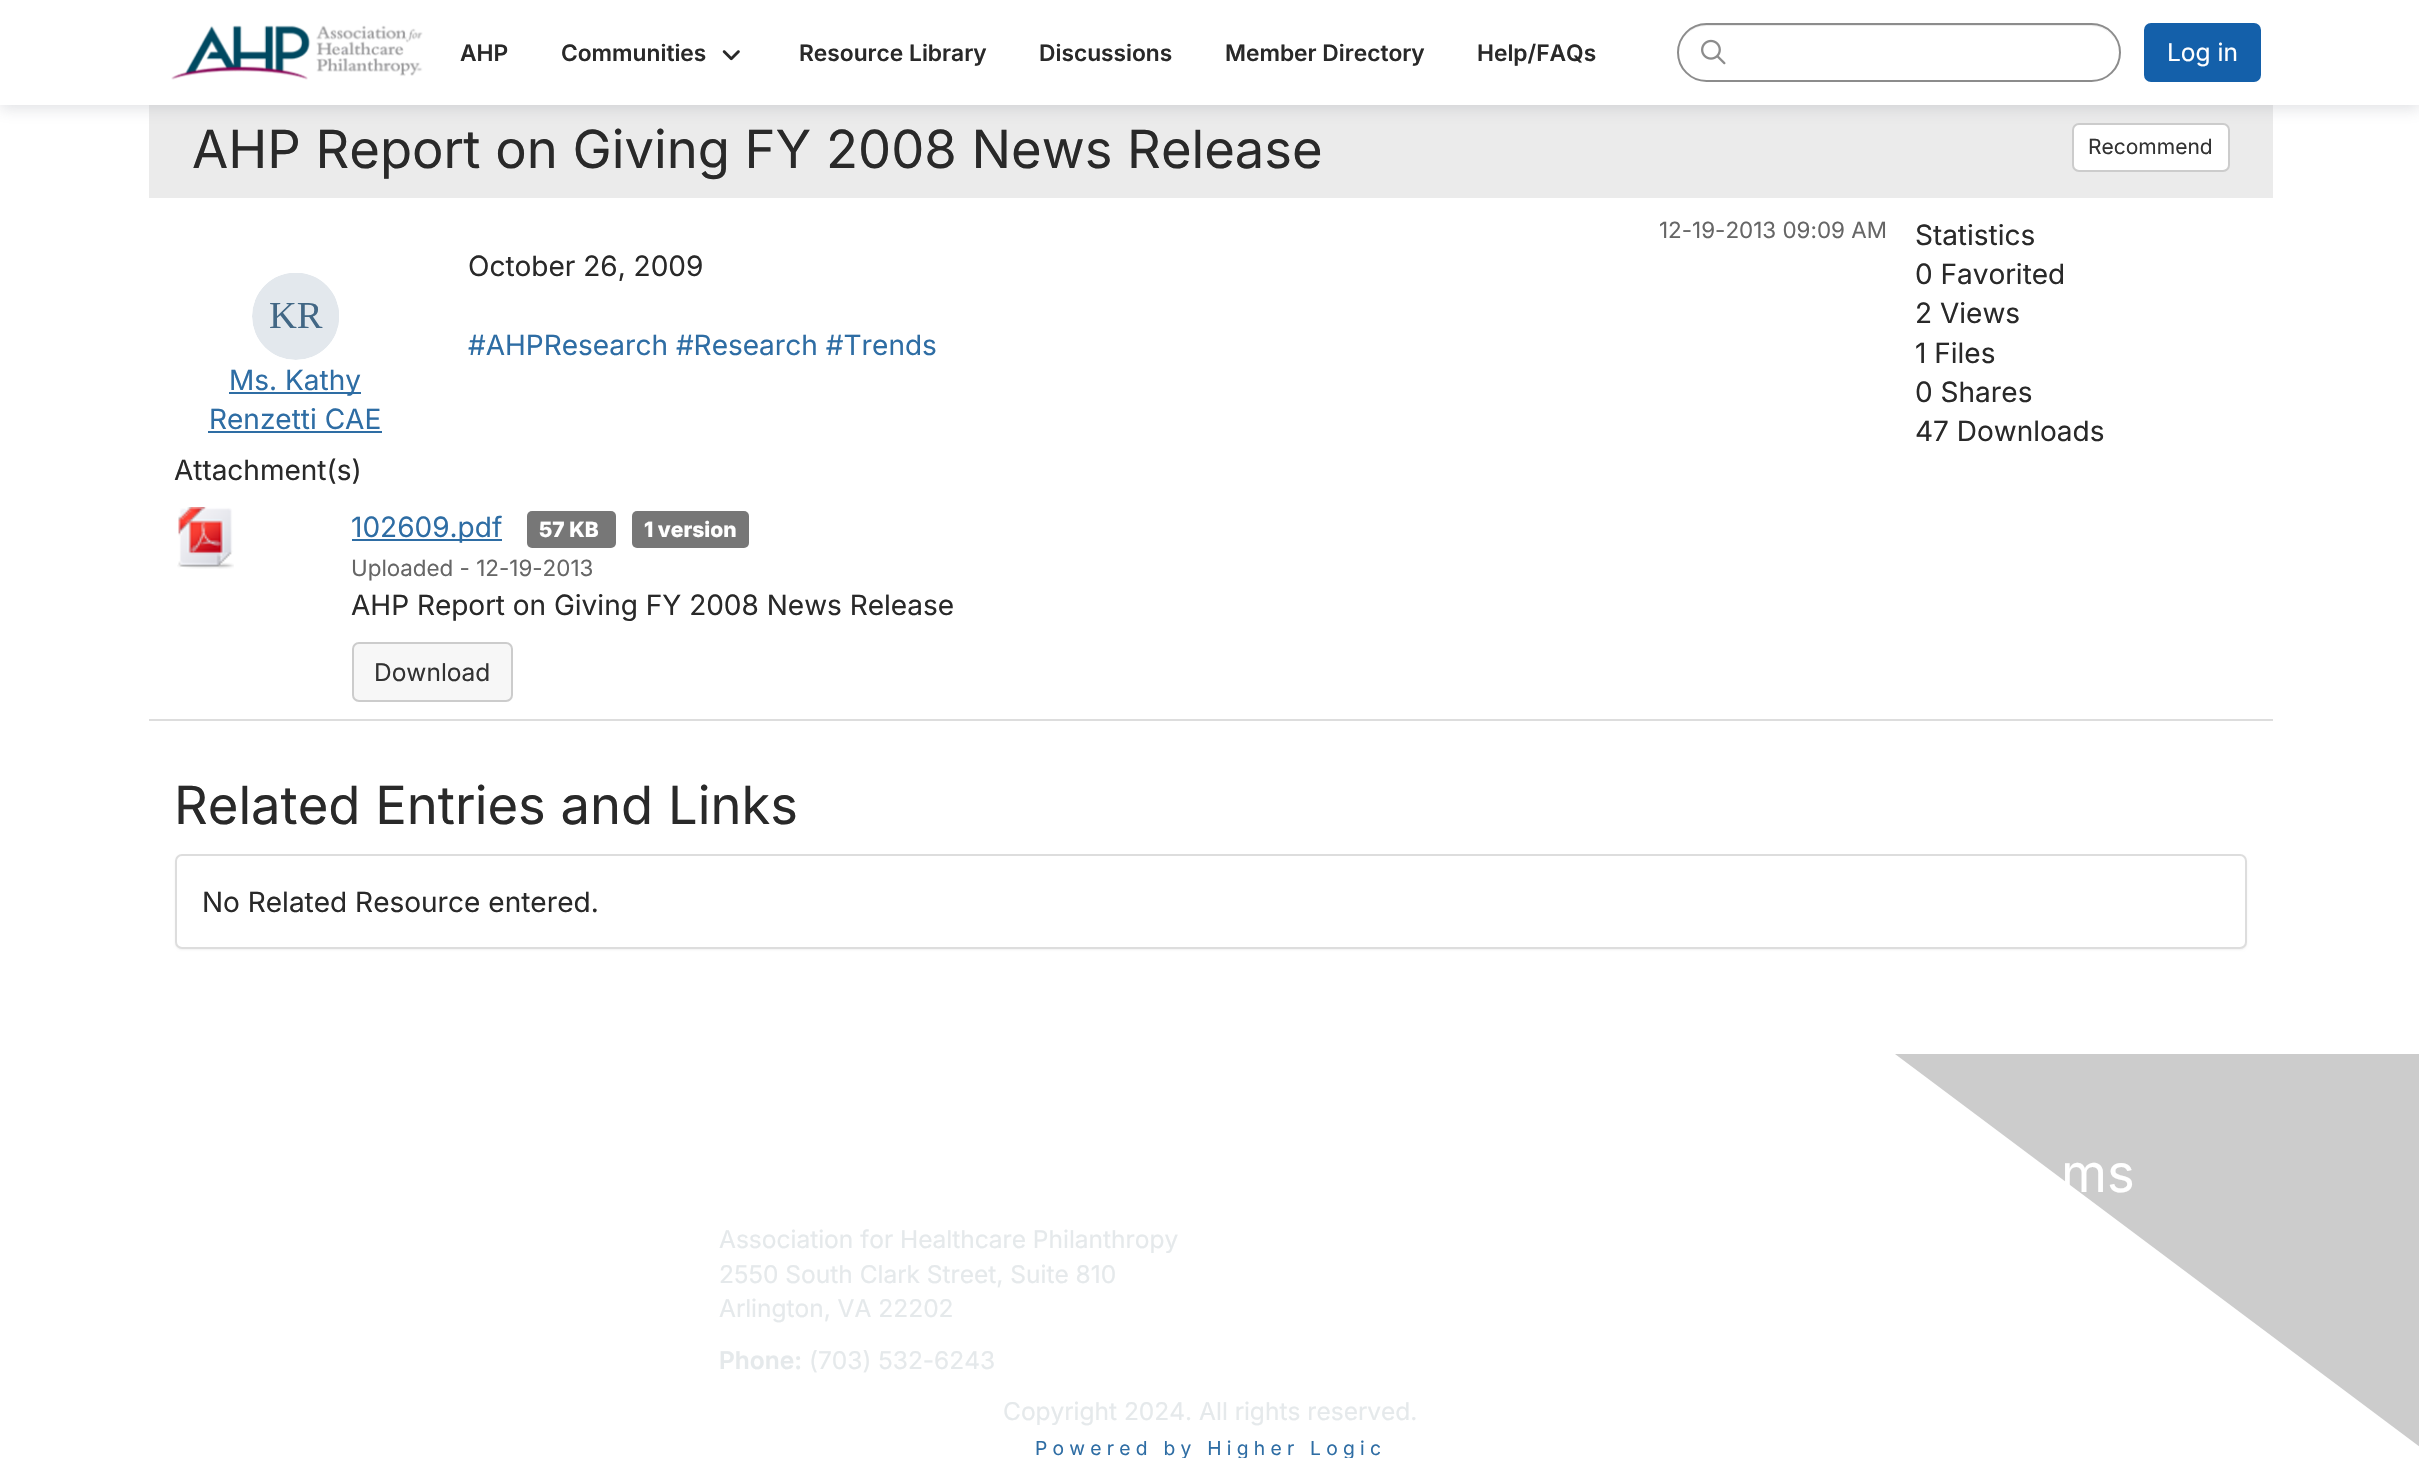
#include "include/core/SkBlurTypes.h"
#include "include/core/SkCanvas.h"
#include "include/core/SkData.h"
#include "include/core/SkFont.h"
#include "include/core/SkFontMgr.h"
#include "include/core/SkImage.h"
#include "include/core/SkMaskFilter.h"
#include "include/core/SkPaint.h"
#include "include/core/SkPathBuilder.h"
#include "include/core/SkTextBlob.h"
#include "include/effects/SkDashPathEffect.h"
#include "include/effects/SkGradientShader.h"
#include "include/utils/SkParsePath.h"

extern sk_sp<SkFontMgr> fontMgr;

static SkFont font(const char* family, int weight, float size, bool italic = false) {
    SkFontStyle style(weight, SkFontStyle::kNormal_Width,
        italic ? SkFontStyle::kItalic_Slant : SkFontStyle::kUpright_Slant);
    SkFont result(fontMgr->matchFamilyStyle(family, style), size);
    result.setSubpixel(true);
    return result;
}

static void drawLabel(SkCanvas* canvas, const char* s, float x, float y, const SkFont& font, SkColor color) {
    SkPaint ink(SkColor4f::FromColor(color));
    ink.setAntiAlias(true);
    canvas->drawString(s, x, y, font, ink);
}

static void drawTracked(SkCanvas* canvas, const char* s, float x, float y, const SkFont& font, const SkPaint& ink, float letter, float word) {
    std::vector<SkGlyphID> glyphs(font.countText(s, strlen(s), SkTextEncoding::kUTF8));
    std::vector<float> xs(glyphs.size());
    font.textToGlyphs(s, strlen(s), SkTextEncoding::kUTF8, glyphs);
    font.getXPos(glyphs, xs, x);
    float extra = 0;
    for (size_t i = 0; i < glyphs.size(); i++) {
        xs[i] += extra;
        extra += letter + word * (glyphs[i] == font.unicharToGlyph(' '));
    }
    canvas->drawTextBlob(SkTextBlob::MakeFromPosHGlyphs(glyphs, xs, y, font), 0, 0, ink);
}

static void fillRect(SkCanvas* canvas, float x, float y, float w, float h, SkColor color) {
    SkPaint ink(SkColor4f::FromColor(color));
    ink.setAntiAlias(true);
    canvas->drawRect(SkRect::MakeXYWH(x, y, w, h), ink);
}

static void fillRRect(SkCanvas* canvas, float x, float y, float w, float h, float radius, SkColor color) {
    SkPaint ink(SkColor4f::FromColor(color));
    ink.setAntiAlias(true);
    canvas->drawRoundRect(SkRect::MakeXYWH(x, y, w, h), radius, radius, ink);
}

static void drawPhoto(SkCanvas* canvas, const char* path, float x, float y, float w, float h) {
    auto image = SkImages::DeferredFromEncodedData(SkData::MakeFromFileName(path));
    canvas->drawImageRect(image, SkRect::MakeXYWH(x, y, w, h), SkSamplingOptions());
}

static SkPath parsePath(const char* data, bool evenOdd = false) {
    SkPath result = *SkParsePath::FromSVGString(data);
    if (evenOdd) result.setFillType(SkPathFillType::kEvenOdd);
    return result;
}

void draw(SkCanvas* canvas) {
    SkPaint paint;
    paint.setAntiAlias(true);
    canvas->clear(0xFFFFFFFF);
    fillRect(canvas, 149, 105, 2124, 93, 0xFFEBEBEB);
    paint.setColor(0xFFFFFFFF);
    canvas->drawRoundRect(SkRect::MakeXYWH(2073, 124, 156, 47), 6, 6, paint);
    paint.setStroke(true);
    paint.setStrokeWidth(2);
    paint.setColor(0xFFCCCCCC);
    canvas->drawRoundRect(SkRect::MakeXYWH(2073, 124, 156, 47), 6, 6, paint);
    paint.setStroke(false);
    paint.setColor(0x3D838791);
    paint.setMaskFilter(SkMaskFilter::MakeBlur(kNormal_SkBlurStyle, 7));
    canvas->drawRect(SkRect::MakeXYWH(0, 4, 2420, 105), paint);
    paint.setMaskFilter(nullptr);
    fillRect(canvas, 0, 0, 2419, 105, 0xFFFFFFFF);
    drawPhoto(canvas, "assets/img1.png", 171, 25, 252, 55);
    SkFont font1 = font("Inter", 600, 22.75f);
    drawLabel(canvas, "AHP", 460, 61, font1, 0xFF292929);
    drawLabel(canvas, "Communities", 561, 61, font1, 0xFF292929);
    drawPhoto(canvas, "assets/img2.png", 722, 50, 18, 11);
    drawLabel(canvas, "Resource Library", 799, 61, font1, 0xFF292929);
    drawLabel(canvas, "Discussions", 1039, 61, font1, 0xFF292929);
    drawLabel(canvas, "Member Directory", 1225, 61, font1, 0xFF292929);
    drawLabel(canvas, "Help/FAQs", 1477, 61, font1, 0xFF292929);
    paint.setColor(0xFFECECEC);
    canvas->drawPath(parsePath("M1706 26H2091C2107 26 2119 39 2119 54C2119 38 2106 25 2091 25H1706C1691 25 1678 38 1678 54C1678 39 1691 26 1706 26Z"), paint);
    paint.setStroke(true);
    paint.setColor(0xFF8C8C8C);
    canvas->drawRoundRect(SkRect::MakeXYWH(1678, 24, 442, 57), 28.5f, 28.5f, paint);
    drawPhoto(canvas, "assets/img3.png", 1701, 39, 25, 26);
    paint.setStroke(false);
    paint.setColor(0xFF1460AA);
    canvas->drawRoundRect(SkRect::MakeXYWH(2145, 24, 115, 57), 6, 6, paint);
    paint.setStroke(true);
    canvas->drawRoundRect(SkRect::MakeXYWH(2145, 24, 115, 57), 6, 6, paint);
    SkFont font2 = font("Inter", 400, 24.5f);
    drawLabel(canvas, "Log in", 2167, 61, font2, 0xFFFFFFFF);
    SkFont font3 = font("Inter", 400, 52.5f);
    drawLabel(canvas, "AHP Report on Giving FY 2008 News Release", 192, 168, font3, 0xFF292929);
    SkFont font4 = font("Inter", 400, 21);
    drawLabel(canvas, "Recommend", 2088, 154, font4, 0xFF333333);
    SkFont font5 = font("Inter", 400, 22.4f);
    drawLabel(canvas, "12-19-2013 09:09 AM", 1659, 238, font5, 0xFF666666);
    SkFont font6 = font("Inter", 400, 28);
    drawLabel(canvas, "October 26, 2009", 468, 276, font6, 0xFF292929);
    drawLabel(canvas, "#AHPResearch #Research #Trends", 468, 355, font6, 0xFF2E6DA4);
    drawPhoto(canvas, "assets/img4.png", 252, 273, 87, 87);
    fillRect(canvas, 229, 392, 132, 2, 0xFF2E6DA4);
    drawLabel(canvas, "Ms. Kathy", 229, 390, font6, 0xFF2E6DA4);
    drawLabel(canvas, "Renzetti CAE", 209, 429, font6, 0xFF2E6DA4);
    fillRect(canvas, 208, 431, 174, 2, 0xFF2E6DA4);
    drawLabel(canvas, "Statistics", 1915, 245, font6, 0xFF292929);
    drawLabel(canvas, "0 Favorited", 1915, 284, font6, 0xFF292929);
    drawLabel(canvas, "2 Views", 1915, 323, font6, 0xFF292929);
    drawLabel(canvas, "1 Files", 1915, 363, font6, 0xFF292929);
    drawLabel(canvas, "0 Shares", 1915, 402, font6, 0xFF292929);
    drawLabel(canvas, "47 Downloads", 1915, 441, font6, 0xFF292929);
    drawLabel(canvas, "Attachment(s)", 174, 480, font6, 0xFF292929);
    fillRect(canvas, 149, 719, 2124, 2, 0xFFDDDDDD);
    drawPhoto(canvas, "assets/img5.png", 177, 507, 57, 62);
    fillRect(canvas, 352, 539, 150, 2, 0xFF2E6DA4);
    drawLabel(canvas, "102609.pdf", 351, 537, font6, 0xFF2E6DA4);
    fillRRect(canvas, 527, 511, 89, 37, 5, 0xFF777777);
    SkFont font7 = font("Inter", 800, 21);
    drawLabel(canvas, "57 KB", 539, 537, font7, 0xFFFFFFFF);
    fillRRect(canvas, 632, 511, 117, 37, 5, 0xFF777777);
    drawLabel(canvas, "1 version", 644, 537, font7, 0xFFFFFFFF);
    drawLabel(canvas, "Uploaded - 12-19-2013", 351, 576, font5, 0xFF666666);
    drawLabel(canvas, "AHP Report on Giving FY 2008 News Release", 351, 615, font6, 0xFF292929);
    paint.setStroke(false);
    paint.setColor(0xFFF7F7F7);
    canvas->drawRoundRect(SkRect::MakeXYWH(353, 643, 159, 58), 6, 6, paint);
    paint.setStroke(true);
    paint.setColor(0xFFCCCCCC);
    canvas->drawRoundRect(SkRect::MakeXYWH(353, 643, 159, 58), 6, 6, paint);
    drawLabel(canvas, "Download", 374, 681, font2, 0xFF333333);
    drawLabel(canvas, "Related Entries and Links", 174, 824, font3, 0xFF292929);
    paint.setStroke(false);
    paint.setColor(0x0D000000);
    paint.setMaskFilter(SkMaskFilter::MakeBlur(kNormal_SkBlurStyle, 1));
    canvas->drawRoundRect(SkRect::MakeXYWH(175, 856, 2072, 94), 7, 7, paint);
    paint.setMaskFilter(nullptr);
    paint.setColor(0xFFFFFFFF);
    canvas->drawRoundRect(SkRect::MakeXYWH(176, 855, 2070, 93), 6, 6, paint);
    paint.setStroke(true);
    paint.setColor(0xFFDDDDDD);
    canvas->drawRoundRect(SkRect::MakeXYWH(176, 855, 2070, 93), 6, 6, paint);
    drawLabel(canvas, "No Related Resource entered.", 202, 912, font6, 0xFF292929);
    paint.setStroke(false);
    paint.setColor(0xFFCCCCCC);
    canvas->drawPath(parsePath("M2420 1054V1447L1895 1054Z"), paint);
    drawLabel(canvas, "ms", 2061, 1192, font3, 0xFFFFFFFF);
    drawLabel(canvas, "Association for Healthcare Philanthropy", 719, 1248, font2, 0xFFE5E9EB);
    drawLabel(canvas, "2550 South Clark Street, Suite 810", 719, 1283, font2, 0xFFE5E9EB);
    drawLabel(canvas, "Arlington, VA 22202", 719, 1317, font2, 0xFFE5E9EB);
    SkFont font8 = font("Inter", 600, 24.5f);
    drawLabel(canvas, "Phone:", 719, 1369, font8, 0xFFE5E9EB);
    drawLabel(canvas, "(703) 532-6243", 809, 1369, font2, 0xFFE5E9EB);
    drawLabel(canvas, "Copyright 2024. All rights reserved.", 1003, 1420, font2, 0xFFE5E9EB);
    SkFont font9 = font("Inter", 400, 19.25f);
    paint.setColor(0xFF2E6DA4);
    drawTracked(canvas, "Powered by Higher Logic", 1035, 1455, font9, paint, 5.25f, 0);
}
